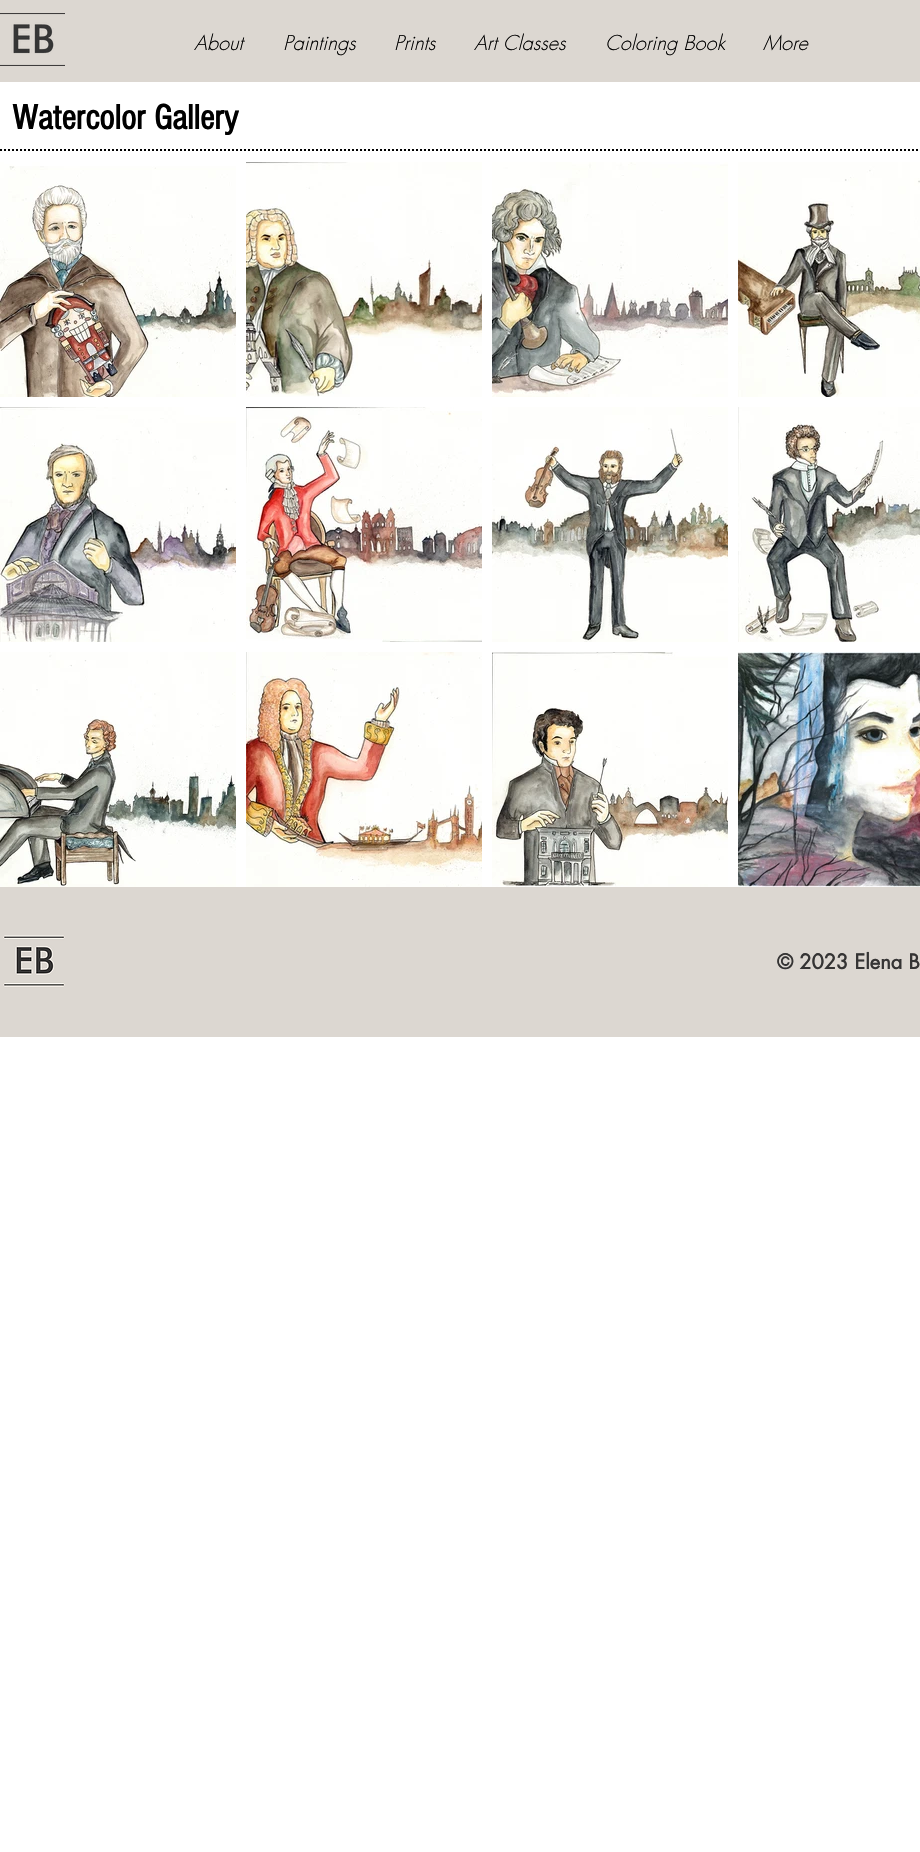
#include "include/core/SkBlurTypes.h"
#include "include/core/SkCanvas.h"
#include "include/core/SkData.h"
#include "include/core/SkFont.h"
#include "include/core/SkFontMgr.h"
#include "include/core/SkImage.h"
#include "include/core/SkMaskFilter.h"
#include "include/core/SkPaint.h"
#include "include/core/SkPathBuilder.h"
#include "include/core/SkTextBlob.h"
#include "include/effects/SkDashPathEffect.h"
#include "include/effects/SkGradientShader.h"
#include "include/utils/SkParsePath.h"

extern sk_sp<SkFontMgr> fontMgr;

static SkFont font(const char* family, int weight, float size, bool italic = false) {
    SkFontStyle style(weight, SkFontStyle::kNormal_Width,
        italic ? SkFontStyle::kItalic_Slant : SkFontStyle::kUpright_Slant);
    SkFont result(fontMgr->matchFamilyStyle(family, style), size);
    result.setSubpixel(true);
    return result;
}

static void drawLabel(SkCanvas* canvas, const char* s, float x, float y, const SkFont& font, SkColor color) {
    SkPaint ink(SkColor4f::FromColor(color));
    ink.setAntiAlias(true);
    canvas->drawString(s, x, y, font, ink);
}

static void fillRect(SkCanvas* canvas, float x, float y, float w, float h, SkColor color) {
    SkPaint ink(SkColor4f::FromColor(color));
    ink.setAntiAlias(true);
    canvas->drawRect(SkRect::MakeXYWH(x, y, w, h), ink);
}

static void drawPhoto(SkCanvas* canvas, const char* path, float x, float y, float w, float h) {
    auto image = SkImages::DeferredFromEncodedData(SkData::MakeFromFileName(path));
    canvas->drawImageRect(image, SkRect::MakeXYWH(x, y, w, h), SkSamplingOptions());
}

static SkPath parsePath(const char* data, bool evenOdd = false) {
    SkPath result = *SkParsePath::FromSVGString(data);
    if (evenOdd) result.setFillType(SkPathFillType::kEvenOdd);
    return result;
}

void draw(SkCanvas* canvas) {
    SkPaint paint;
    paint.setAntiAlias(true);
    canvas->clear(0xFFFFFFFF);
    fillRect(canvas, 0, 0, 920, 82, 0xFFDCD7D1);
    drawPhoto(canvas, "assets/img1.png", 0, 13, 65, 53);
    SkFont font1 = font("futura", 300, 20, true);
    drawLabel(canvas, "About", 194, 50, font1, 0xFF000000);
    drawLabel(canvas, "Paintings", 283, 50, font1, 0xFF000000);
    drawLabel(canvas, "Prints", 394, 50, font1, 0xFF000000);
    drawLabel(canvas, "Art Classes", 474, 50, font1, 0xFF000000);
    drawLabel(canvas, "Coloring Book", 605, 50, font1, 0xFF000000);
    drawLabel(canvas, "More", 763, 50, font1, 0xFF000000);
    SkFont font2 = font("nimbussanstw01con", 700, 36);
    drawLabel(canvas, "Watercolor Gallery", 12, 129, font2, 0xFF000000);
    paint.setStroke(true);
    paint.setStrokeWidth(2);
    paint.setColor(0xFF000000);
    paint.setPathEffect(SkDashPathEffect::Make({{2, 2}}, 0));
    canvas->drawPath(parsePath("M0 150H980"), paint);
    paint.setPathEffect(nullptr);
    drawPhoto(canvas, "assets/img2.png", 0, 162, 236, 235);
    drawPhoto(canvas, "assets/img3.png", 246, 162, 236, 235);
    drawPhoto(canvas, "assets/img4.png", 492, 162, 236, 235);
    drawPhoto(canvas, "assets/img5.png", 738, 162, 182, 235);
    drawPhoto(canvas, "assets/img6.png", 0, 407, 236, 235);
    drawPhoto(canvas, "assets/img7.png", 246, 407, 236, 235);
    drawPhoto(canvas, "assets/img8.png", 492, 407, 236, 235);
    drawPhoto(canvas, "assets/img9.png", 738, 407, 182, 235);
    drawPhoto(canvas, "assets/img10.png", 0, 652, 236, 235);
    drawPhoto(canvas, "assets/img11.png", 246, 652, 236, 235);
    drawPhoto(canvas, "assets/img12.png", 492, 652, 236, 235);
    drawPhoto(canvas, "assets/img13.png", 738, 652, 182, 235);
    fillRect(canvas, 0, 887, 920, 150, 0xFFDCD7D1);
    drawPhoto(canvas, "assets/img14.png", 3, 935, 62, 53);
    SkFont font3 = font("futura", 700, 20);
    drawLabel(canvas, "© 2023 Elena B", 777, 969, font3, 0xFF353434);
}
